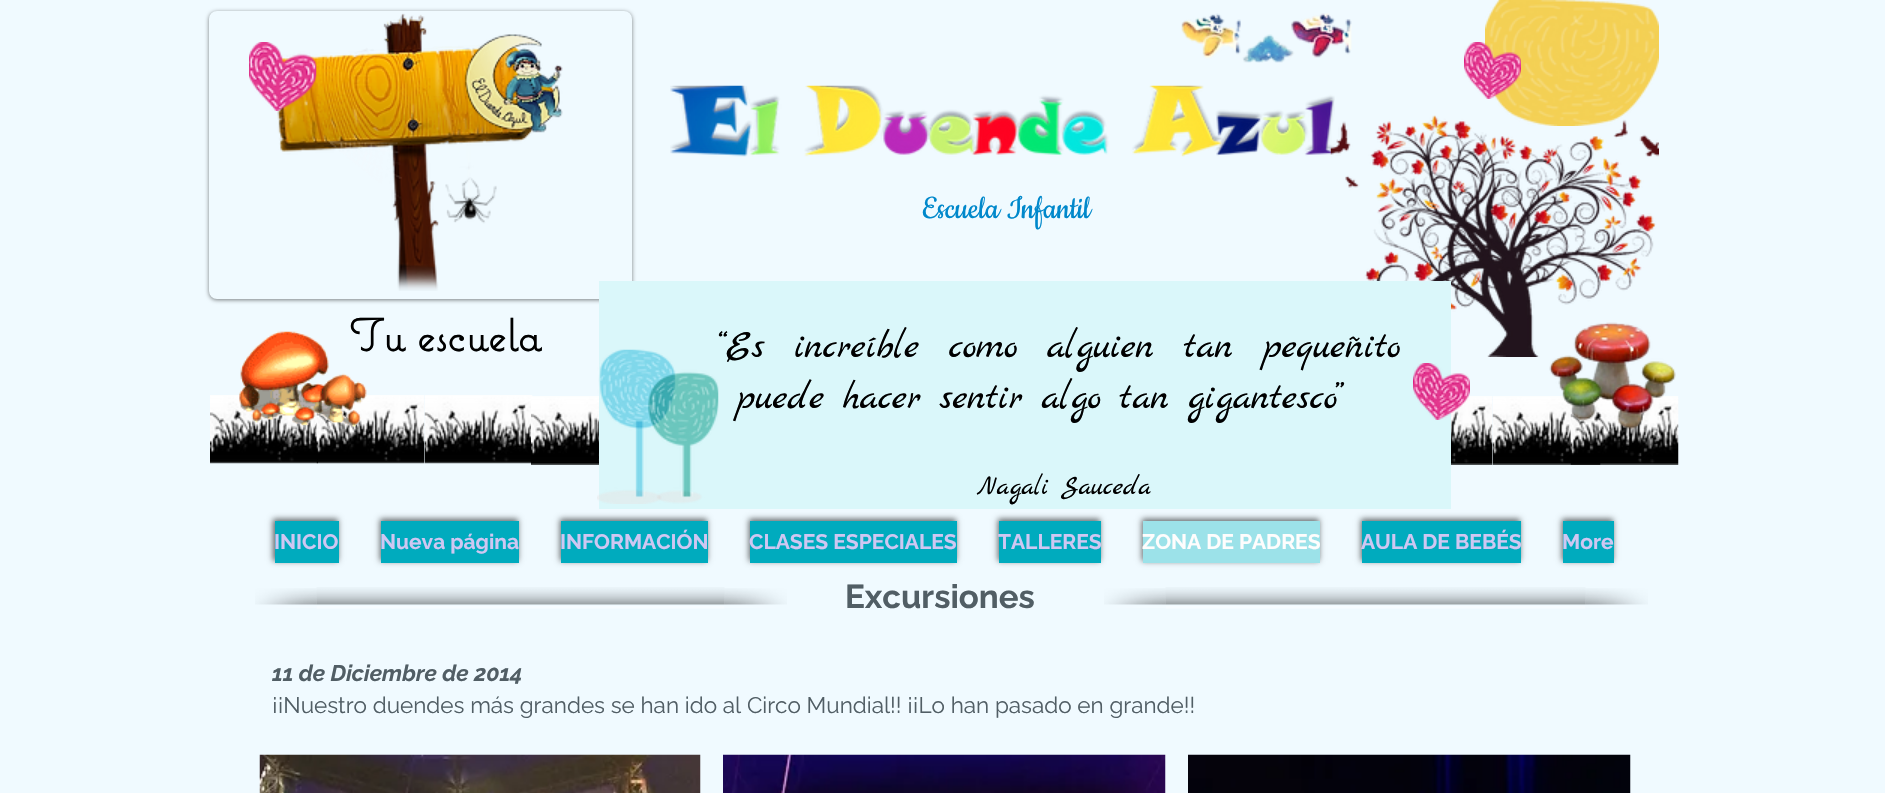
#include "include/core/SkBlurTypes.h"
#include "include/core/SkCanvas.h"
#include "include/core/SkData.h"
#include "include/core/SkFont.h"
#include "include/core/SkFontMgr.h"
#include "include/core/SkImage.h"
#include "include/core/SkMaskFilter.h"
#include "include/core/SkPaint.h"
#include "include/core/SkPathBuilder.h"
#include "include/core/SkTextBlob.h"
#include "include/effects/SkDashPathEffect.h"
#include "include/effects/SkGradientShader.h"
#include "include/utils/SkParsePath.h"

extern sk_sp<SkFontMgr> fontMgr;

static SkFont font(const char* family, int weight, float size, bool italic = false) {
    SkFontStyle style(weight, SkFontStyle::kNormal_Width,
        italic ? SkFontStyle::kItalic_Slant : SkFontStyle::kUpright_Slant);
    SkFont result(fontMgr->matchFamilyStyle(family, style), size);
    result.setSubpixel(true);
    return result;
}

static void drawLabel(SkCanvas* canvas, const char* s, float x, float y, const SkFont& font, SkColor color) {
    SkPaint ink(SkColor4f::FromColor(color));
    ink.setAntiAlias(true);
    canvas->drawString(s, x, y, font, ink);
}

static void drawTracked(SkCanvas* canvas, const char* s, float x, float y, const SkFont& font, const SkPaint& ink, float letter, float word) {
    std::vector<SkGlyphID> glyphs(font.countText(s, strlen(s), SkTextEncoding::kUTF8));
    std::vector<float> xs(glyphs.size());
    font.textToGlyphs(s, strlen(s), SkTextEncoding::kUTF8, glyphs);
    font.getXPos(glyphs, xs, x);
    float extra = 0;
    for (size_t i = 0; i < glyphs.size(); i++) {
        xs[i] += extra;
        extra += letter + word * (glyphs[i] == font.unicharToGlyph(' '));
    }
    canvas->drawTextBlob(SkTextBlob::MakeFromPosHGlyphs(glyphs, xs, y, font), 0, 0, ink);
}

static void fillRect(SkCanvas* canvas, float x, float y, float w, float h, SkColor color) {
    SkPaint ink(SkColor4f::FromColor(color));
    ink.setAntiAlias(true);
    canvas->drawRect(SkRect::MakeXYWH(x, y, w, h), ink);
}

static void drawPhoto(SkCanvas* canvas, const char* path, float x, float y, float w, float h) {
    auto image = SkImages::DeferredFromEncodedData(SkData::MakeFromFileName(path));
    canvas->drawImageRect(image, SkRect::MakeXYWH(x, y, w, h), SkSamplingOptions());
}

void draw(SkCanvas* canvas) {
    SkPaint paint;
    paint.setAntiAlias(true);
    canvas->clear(0xFFF0FAFF);
    paint.setColor(0x80000000);
    paint.setMaskFilter(SkMaskFilter::MakeBlur(kNormal_SkBlurStyle, 2));
    canvas->drawRoundRect(SkRect::MakeXYWH(209, 12, 423, 288), 8, 8, paint);
    paint.setMaskFilter(nullptr);
    paint.setColor(0xFFF0FAFF);
    canvas->drawRoundRect(SkRect::MakeXYWH(210.5f, 12.5f, 420, 285), 6.5f, 6.5f, paint);
    paint.setStroke(true);
    paint.setStrokeWidth(3);
    canvas->drawRoundRect(SkRect::MakeXYWH(210.5f, 12.5f, 420, 285), 6.5f, 6.5f, paint);
    drawPhoto(canvas, "assets/img1.png", 277, 13, 282, 278);
    drawPhoto(canvas, "assets/img2.png", 1181, 13, 171, 50);
    drawPhoto(canvas, "assets/img3.png", 1485, 0, 174, 126);
    drawPhoto(canvas, "assets/img4.png", 249, 42, 68, 69);
    drawPhoto(canvas, "assets/img5.png", 464, 34, 99, 99);
    drawPhoto(canvas, "assets/img6.png", 1464, 42, 57, 57);
    drawPhoto(canvas, "assets/img7.png", 670, 85, 665, 72);
    drawPhoto(canvas, "assets/img17.png", 1451, 396, 42, 69);
    drawPhoto(canvas, "assets/img18.png", 1492, 396, 109, 69);
    drawPhoto(canvas, "assets/img19.png", 1570, 396, 109, 69);
    drawPhoto(canvas, "assets/img12.png", 1549, 322, 127, 108);
    drawPhoto(canvas, "assets/img8.png", 1330, 115, 329, 242);
    SkFont font1 = font("Cookie", 400, 36);
    drawLabel(canvas, "Escuela Infantil", 922, 218, font1, 0xFF0088CB);
    SkFont font2 = font("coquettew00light", 700, 45);
    drawLabel(canvas, "Tu escuela", 349, 351, font2, 0xFF000000);
    drawPhoto(canvas, "assets/img13.png", 210, 395, 108, 69);
    drawPhoto(canvas, "assets/img14.png", 316, 395, 109, 69);
    drawPhoto(canvas, "assets/img9.png", 239, 331, 128, 96);
    fillRect(canvas, 599, 281, 852, 228, 0xFFDAF7FA);
    SkFont font3 = font("Marck Script", 400, 39);
    paint.setStroke(false);
    paint.setColor(0xFF000000);
    drawTracked(canvas, "“Es increíble como alguien tan pequeñito", 718, 357, font3, paint, 0, 11);
    drawPhoto(canvas, "assets/img15.png", 424, 395, 109, 69);
    drawPhoto(canvas, "assets/img16.png", 531, 396, 68, 69);
    drawPhoto(canvas, "assets/img10.png", 597, 349, 122, 155);
    drawLabel(canvas, "puede hacer sentir algo tan gigantesco”", 736, 408, font3, 0xFF000000);
    SkFont font4 = font("Marck Script", 400, 27);
    drawLabel(canvas, "Nagali Sauceda", 977, 494, font4, 0xFF000000);
    drawPhoto(canvas, "assets/img11.png", 1413, 363, 57, 57);
    paint.setColor(0x99000000);
    paint.setMaskFilter(SkMaskFilter::MakeBlur(kNormal_SkBlurStyle, 3));
    canvas->drawRect(SkRect::MakeXYWH(273, 519, 65, 42), paint);
    paint.setMaskFilter(nullptr);
    fillRect(canvas, 275, 521, 64, 42, 0xFF00ABBE);
    SkFont font5 = font("Raleway", 700, 21);
    drawLabel(canvas, "INICIO", 274, 549, font5, 0xFFCFC7F2);
    paint.setMaskFilter(SkMaskFilter::MakeBlur(kNormal_SkBlurStyle, 3));
    canvas->drawRect(SkRect::MakeXYWH(380, 519, 138, 42), paint);
    paint.setMaskFilter(nullptr);
    fillRect(canvas, 381, 521, 138, 42, 0xFF00ABBE);
    drawLabel(canvas, "Nueva página", 380, 549, font5, 0xFFCFC7F2);
    paint.setMaskFilter(SkMaskFilter::MakeBlur(kNormal_SkBlurStyle, 3));
    canvas->drawRect(SkRect::MakeXYWH(560, 519, 147, 42), paint);
    paint.setMaskFilter(nullptr);
    fillRect(canvas, 561, 521, 147, 42, 0xFF00ABBE);
    drawLabel(canvas, "INFORMACIÓN", 560, 549, font5, 0xFFCFC7F2);
    paint.setMaskFilter(SkMaskFilter::MakeBlur(kNormal_SkBlurStyle, 3));
    canvas->drawRect(SkRect::MakeXYWH(749, 519, 207, 42), paint);
    paint.setMaskFilter(nullptr);
    fillRect(canvas, 750, 521, 207, 42, 0xFF00ABBE);
    drawLabel(canvas, "CLASES ESPECIALES", 749, 549, font5, 0xFFCFC7F2);
    paint.setMaskFilter(SkMaskFilter::MakeBlur(kNormal_SkBlurStyle, 3));
    canvas->drawRect(SkRect::MakeXYWH(998, 519, 102, 42), paint);
    paint.setMaskFilter(nullptr);
    fillRect(canvas, 999, 521, 102, 42, 0xFF00ABBE);
    drawLabel(canvas, "TALLERES", 998, 549, font5, 0xFFCFC7F2);
    paint.setMaskFilter(SkMaskFilter::MakeBlur(kNormal_SkBlurStyle, 3));
    canvas->drawRect(SkRect::MakeXYWH(1142, 519, 177, 42), paint);
    paint.setMaskFilter(nullptr);
    fillRect(canvas, 1143, 521, 177, 42, 0xFF9CE2E9);
    drawLabel(canvas, "ZONA DE PADRES", 1142, 549, font5, 0xFFFEFDFD);
    paint.setMaskFilter(SkMaskFilter::MakeBlur(kNormal_SkBlurStyle, 3));
    canvas->drawRect(SkRect::MakeXYWH(1361, 519, 159, 42), paint);
    paint.setMaskFilter(nullptr);
    fillRect(canvas, 1362, 521, 159, 42, 0xFF00ABBE);
    drawLabel(canvas, "AULA DE BEBÉS", 1361, 549, font5, 0xFFCFC7F2);
    paint.setMaskFilter(SkMaskFilter::MakeBlur(kNormal_SkBlurStyle, 3));
    canvas->drawRect(SkRect::MakeXYWH(1562, 519, 51, 42), paint);
    paint.setMaskFilter(nullptr);
    fillRect(canvas, 1563, 521, 51, 42, 0xFF00ABBE);
    drawLabel(canvas, "More", 1562, 549, font5, 0xFFCFC7F2);
    drawPhoto(canvas, "assets/img20.png", 316, 587, 409, 22);
    drawPhoto(canvas, "assets/img21.png", 255, 588, 62, 20);
    drawPhoto(canvas, "assets/img22.png", 724, 588, 63, 20);
    SkFont font6 = font("Raleway", 700, 33);
    drawLabel(canvas, "Excursiones", 845, 608, font6, 0xFF515E65);
    drawPhoto(canvas, "assets/img23.png", 1165, 587, 421, 22);
    drawPhoto(canvas, "assets/img24.png", 1104, 588, 62, 20);
    drawPhoto(canvas, "assets/img25.png", 1585, 588, 63, 20);
    SkFont font7 = font("Raleway", 700, 22.5f, true);
    drawLabel(canvas, "11 de Diciembre de 2014", 272, 681, font7, 0xFF515E65);
    SkFont font8 = font("Raleway", 400, 22.5f);
    drawLabel(canvas, "¡¡Nuestro duendes más grandes se han ido al Circo Mundial!! ¡¡Lo han pasado en grande!!", 272, 713, font8, 0xFF515E65);
    drawPhoto(canvas, "assets/img26.png", 259, 754, 442, 39);
    drawPhoto(canvas, "assets/img27.png", 723, 754, 443, 39);
    drawPhoto(canvas, "assets/img28.png", 1188, 754, 443, 39);
}
